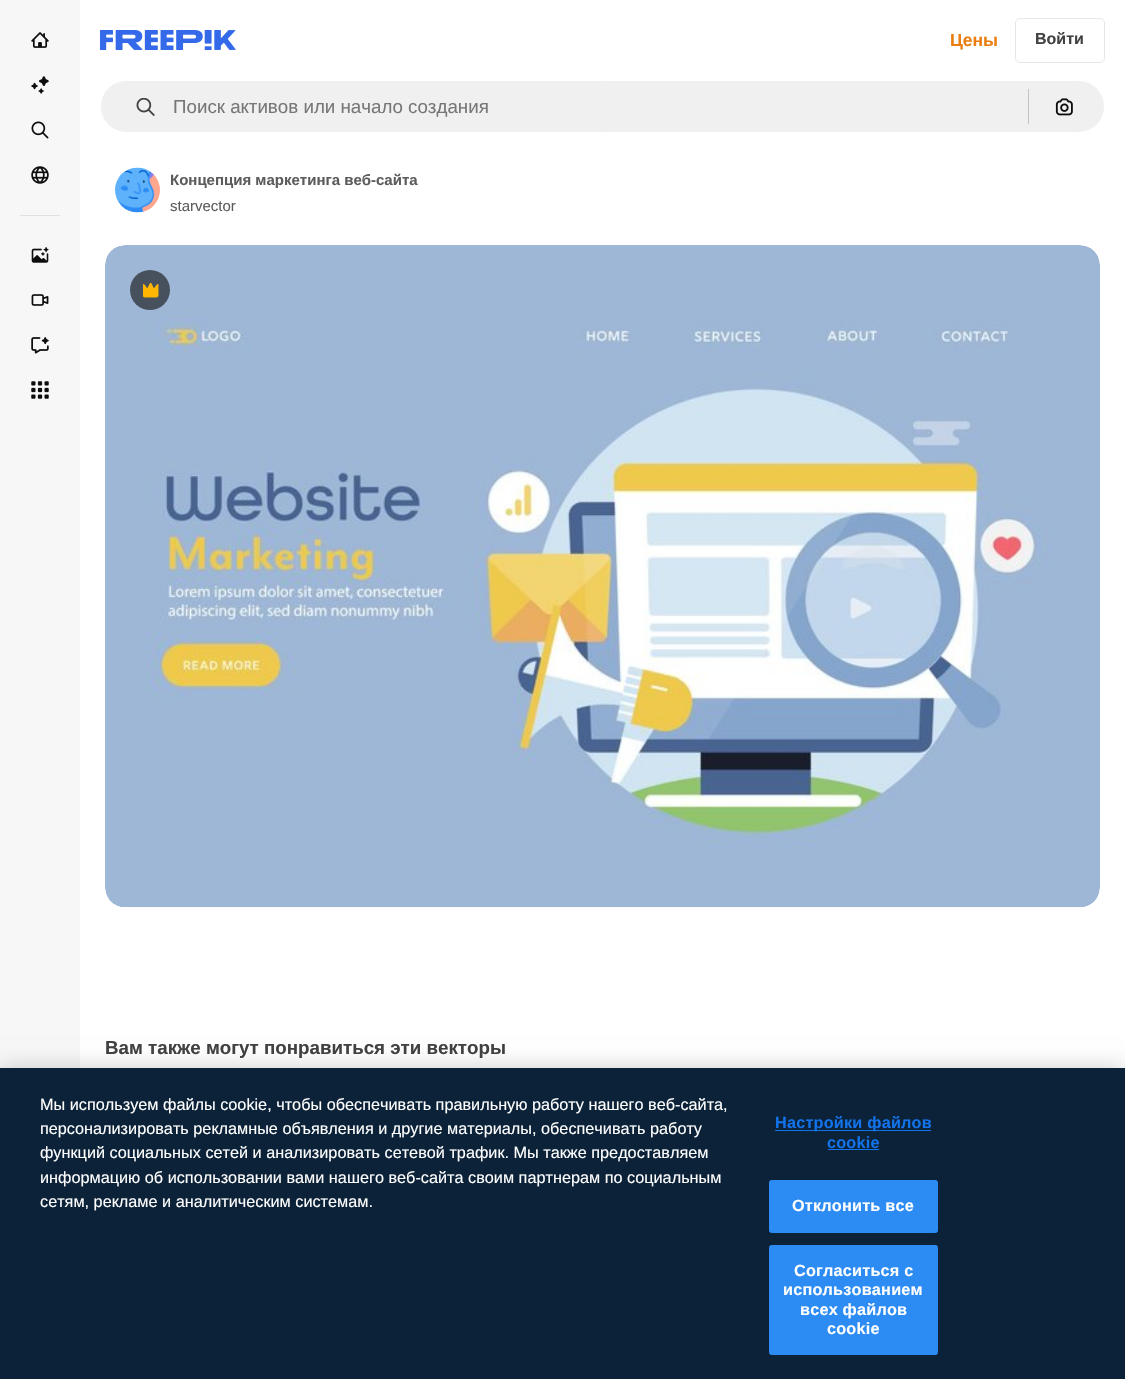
#include "include/core/SkBlurTypes.h"
#include "include/core/SkCanvas.h"
#include "include/core/SkData.h"
#include "include/core/SkFont.h"
#include "include/core/SkFontMgr.h"
#include "include/core/SkImage.h"
#include "include/core/SkMaskFilter.h"
#include "include/core/SkPaint.h"
#include "include/core/SkPathBuilder.h"
#include "include/core/SkTextBlob.h"
#include "include/effects/SkDashPathEffect.h"
#include "include/effects/SkGradientShader.h"
#include "include/utils/SkParsePath.h"

extern sk_sp<SkFontMgr> fontMgr;

static SkFont font(const char* family, int weight, float size, bool italic = false) {
    SkFontStyle style(weight, SkFontStyle::kNormal_Width,
        italic ? SkFontStyle::kItalic_Slant : SkFontStyle::kUpright_Slant);
    SkFont result(fontMgr->matchFamilyStyle(family, style), size);
    result.setSubpixel(true);
    return result;
}

static void drawLabel(SkCanvas* canvas, const char* s, float x, float y, const SkFont& font, SkColor color) {
    SkPaint ink(SkColor4f::FromColor(color));
    ink.setAntiAlias(true);
    canvas->drawString(s, x, y, font, ink);
}

static void drawTracked(SkCanvas* canvas, const char* s, float x, float y, const SkFont& font, const SkPaint& ink, float letter, float word) {
    std::vector<SkGlyphID> glyphs(font.countText(s, strlen(s), SkTextEncoding::kUTF8));
    std::vector<float> xs(glyphs.size());
    font.textToGlyphs(s, strlen(s), SkTextEncoding::kUTF8, glyphs);
    font.getXPos(glyphs, xs, x);
    float extra = 0;
    for (size_t i = 0; i < glyphs.size(); i++) {
        xs[i] += extra;
        extra += letter + word * (glyphs[i] == font.unicharToGlyph(' '));
    }
    canvas->drawTextBlob(SkTextBlob::MakeFromPosHGlyphs(glyphs, xs, y, font), 0, 0, ink);
}

static void fillRect(SkCanvas* canvas, float x, float y, float w, float h, SkColor color) {
    SkPaint ink(SkColor4f::FromColor(color));
    ink.setAntiAlias(true);
    canvas->drawRect(SkRect::MakeXYWH(x, y, w, h), ink);
}

static void drawPhoto(SkCanvas* canvas, const char* path, float x, float y, float w, float h) {
    auto image = SkImages::DeferredFromEncodedData(SkData::MakeFromFileName(path));
    canvas->drawImageRect(image, SkRect::MakeXYWH(x, y, w, h), SkSamplingOptions());
}

void draw(SkCanvas* canvas) {
    SkPaint paint;
    paint.setAntiAlias(true);
    canvas->clear(0xFFFFFFFF);
    fillRect(canvas, 0, 0, 80, 1068, 0xFFF7F7F7);
    drawPhoto(canvas, "assets/img1.png", 31, 32, 18, 16);
    drawPhoto(canvas, "assets/img2.png", 31, 76, 18, 18);
    drawPhoto(canvas, "assets/img3.png", 31, 121, 18, 18);
    drawPhoto(canvas, "assets/img4.png", 31, 166, 18, 18);
    fillRect(canvas, 20, 215, 40, 1, 0xFFE0E0E0);
    drawPhoto(canvas, "assets/img5.png", 31, 247, 18, 16);
    drawPhoto(canvas, "assets/img6.png", 31, 294, 18, 12);
    drawPhoto(canvas, "assets/img7.png", 31, 337, 18, 17);
    drawPhoto(canvas, "assets/img8.png", 31, 381, 18, 18);
    drawPhoto(canvas, "assets/img9.png", 100, 30, 136, 20);
    SkFont font1 = font("Liberation Sans", 700, 17.5f);
    drawLabel(canvas, "Цены", 950, 46, font1, 0xFFEA7E11);
    paint.setStroke(true);
    paint.setStrokeWidth(1);
    paint.setColor(0xFFE7E7E7);
    canvas->drawRoundRect(SkRect::MakeXYWH(1015.5f, 18.5f, 89, 44), 4.5f, 4.5f, paint);
    SkFont font2 = font("Liberation Sans", 700, 16);
    drawLabel(canvas, "Войти", 1035, 44, font2, 0xFF424242);
    paint.setStroke(false);
    paint.setColor(0xFFF0F0F0);
    canvas->drawRoundRect(SkRect::MakeXYWH(100.5f, 80.5f, 1004, 52), 26, 26, paint);
    paint.setStroke(true);
    paint.setColor(0xFFFFFFFF);
    canvas->drawRoundRect(SkRect::MakeXYWH(100.5f, 80.5f, 1004, 52), 26, 26, paint);
    drawPhoto(canvas, "assets/img10.png", 136, 98, 19, 18);
    SkFont font3 = font("Liberation Sans", 400, 18.75f);
    drawLabel(canvas, "Поиск активов или начало создания", 173, 113, font3, 0xFF777777);
    fillRect(canvas, 1028, 89, 1, 35, 0xFFC3C3C3);
    drawPhoto(canvas, "assets/img11.png", 1055, 98, 18, 18);
    drawPhoto(canvas, "assets/img12.png", 115, 167, 45, 46);
    SkFont font4 = font("Liberation Sans", 700, 15);
    drawLabel(canvas, "Концепция маркетинга веб-сайта", 170, 185, font4, 0xFF5C5C5C);
    SkFont font5 = font("Liberation Sans", 400, 15);
    drawLabel(canvas, "starvector", 170, 211, font5, 0xFF5C5C5C);
    drawPhoto(canvas, "assets/img13.png", 105, 245, 995, 663);
    paint.setStroke(false);
    paint.setColor(0xFF47515D);
    canvas->drawCircle(150, 290, 20, paint);
    drawPhoto(canvas, "assets/img14.png", 143, 283, 16, 15);
    SkFont font6 = font("Liberation Sans", 700, 18.75f);
    drawLabel(canvas, "Вам также могут понравиться эти векторы", 105, 1054, font6, 0xFF424242);
    paint.setColor(0x33000000);
    paint.setMaskFilter(SkMaskFilter::MakeBlur(kNormal_SkBlurStyle, 11));
    canvas->drawRect(SkRect::MakeXYWH(0, 1068, 1125, 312), paint);
    paint.setMaskFilter(nullptr);
    fillRect(canvas, 0, 1068, 1125, 311, 0xFF0B2239);
    SkFont font7 = font("Liberation Sans", 400, 16.25f);
    drawLabel(canvas, "Мы используем файлы cookie, чтобы обеспечивать правильную работу нашего веб-сайта,", 40, 1110, font7, 0xFFFFFFFF);
    drawLabel(canvas, "персонализировать рекламные объявления и другие материалы, обеспечивать работу", 40, 1134, font7, 0xFFFFFFFF);
    drawLabel(canvas, "функций социальных сетей и анализировать сетевой трафик. Мы также предоставляем", 40, 1158, font7, 0xFFFFFFFF);
    drawLabel(canvas, "информацию об использовании вами нашего веб-сайта своим партнерам по социальным", 40, 1183, font7, 0xFFFFFFFF);
    drawLabel(canvas, "сетям, рекламе и аналитическим системам.", 40, 1207, font7, 0xFFFFFFFF);
    fillRect(canvas, 775, 1130, 156, 1, 0xFF1273EB);
    SkFont font8 = font("Liberation Sans", 700, 16.25f);
    paint.setColor(0xFF1273EB);
    drawTracked(canvas, "Настройки файлов", 775, 1128, font8, paint, 0.2f, 0);
    drawTracked(canvas, "cookie", 827, 1148, font8, paint, 0.2f, 0);
    fillRect(canvas, 828, 1149, 51, 1, 0xFF1273EB);
    paint.setColor(0xFF2C8CF4);
    canvas->drawRoundRect(SkRect::MakeXYWH(769.5f, 1180.5f, 168, 52), 2, 2, paint);
    paint.setStroke(true);
    canvas->drawRoundRect(SkRect::MakeXYWH(769.5f, 1180.5f, 168, 52), 2, 2, paint);
    paint.setStroke(false);
    paint.setColor(0xFFFFFFFF);
    drawTracked(canvas, "Отклонить все", 792, 1211, font8, paint, 0.2f, 0);
    paint.setColor(0xFF2C8CF4);
    canvas->drawRoundRect(SkRect::MakeXYWH(769.5f, 1245.5f, 168, 109), 2, 2, paint);
    paint.setStroke(true);
    canvas->drawRoundRect(SkRect::MakeXYWH(769.5f, 1245.5f, 168, 109), 2, 2, paint);
    paint.setStroke(false);
    paint.setColor(0xFFFFFFFF);
    drawTracked(canvas, "Согласиться с", 794, 1276, font8, paint, 0.2f, 0);
    drawTracked(canvas, "использованием", 783, 1295, font8, paint, 0.2f, 0);
    drawTracked(canvas, "всех файлов", 800, 1315, font8, paint, 0.2f, 0);
    drawTracked(canvas, "cookie", 827, 1334, font8, paint, 0.2f, 0);
}
